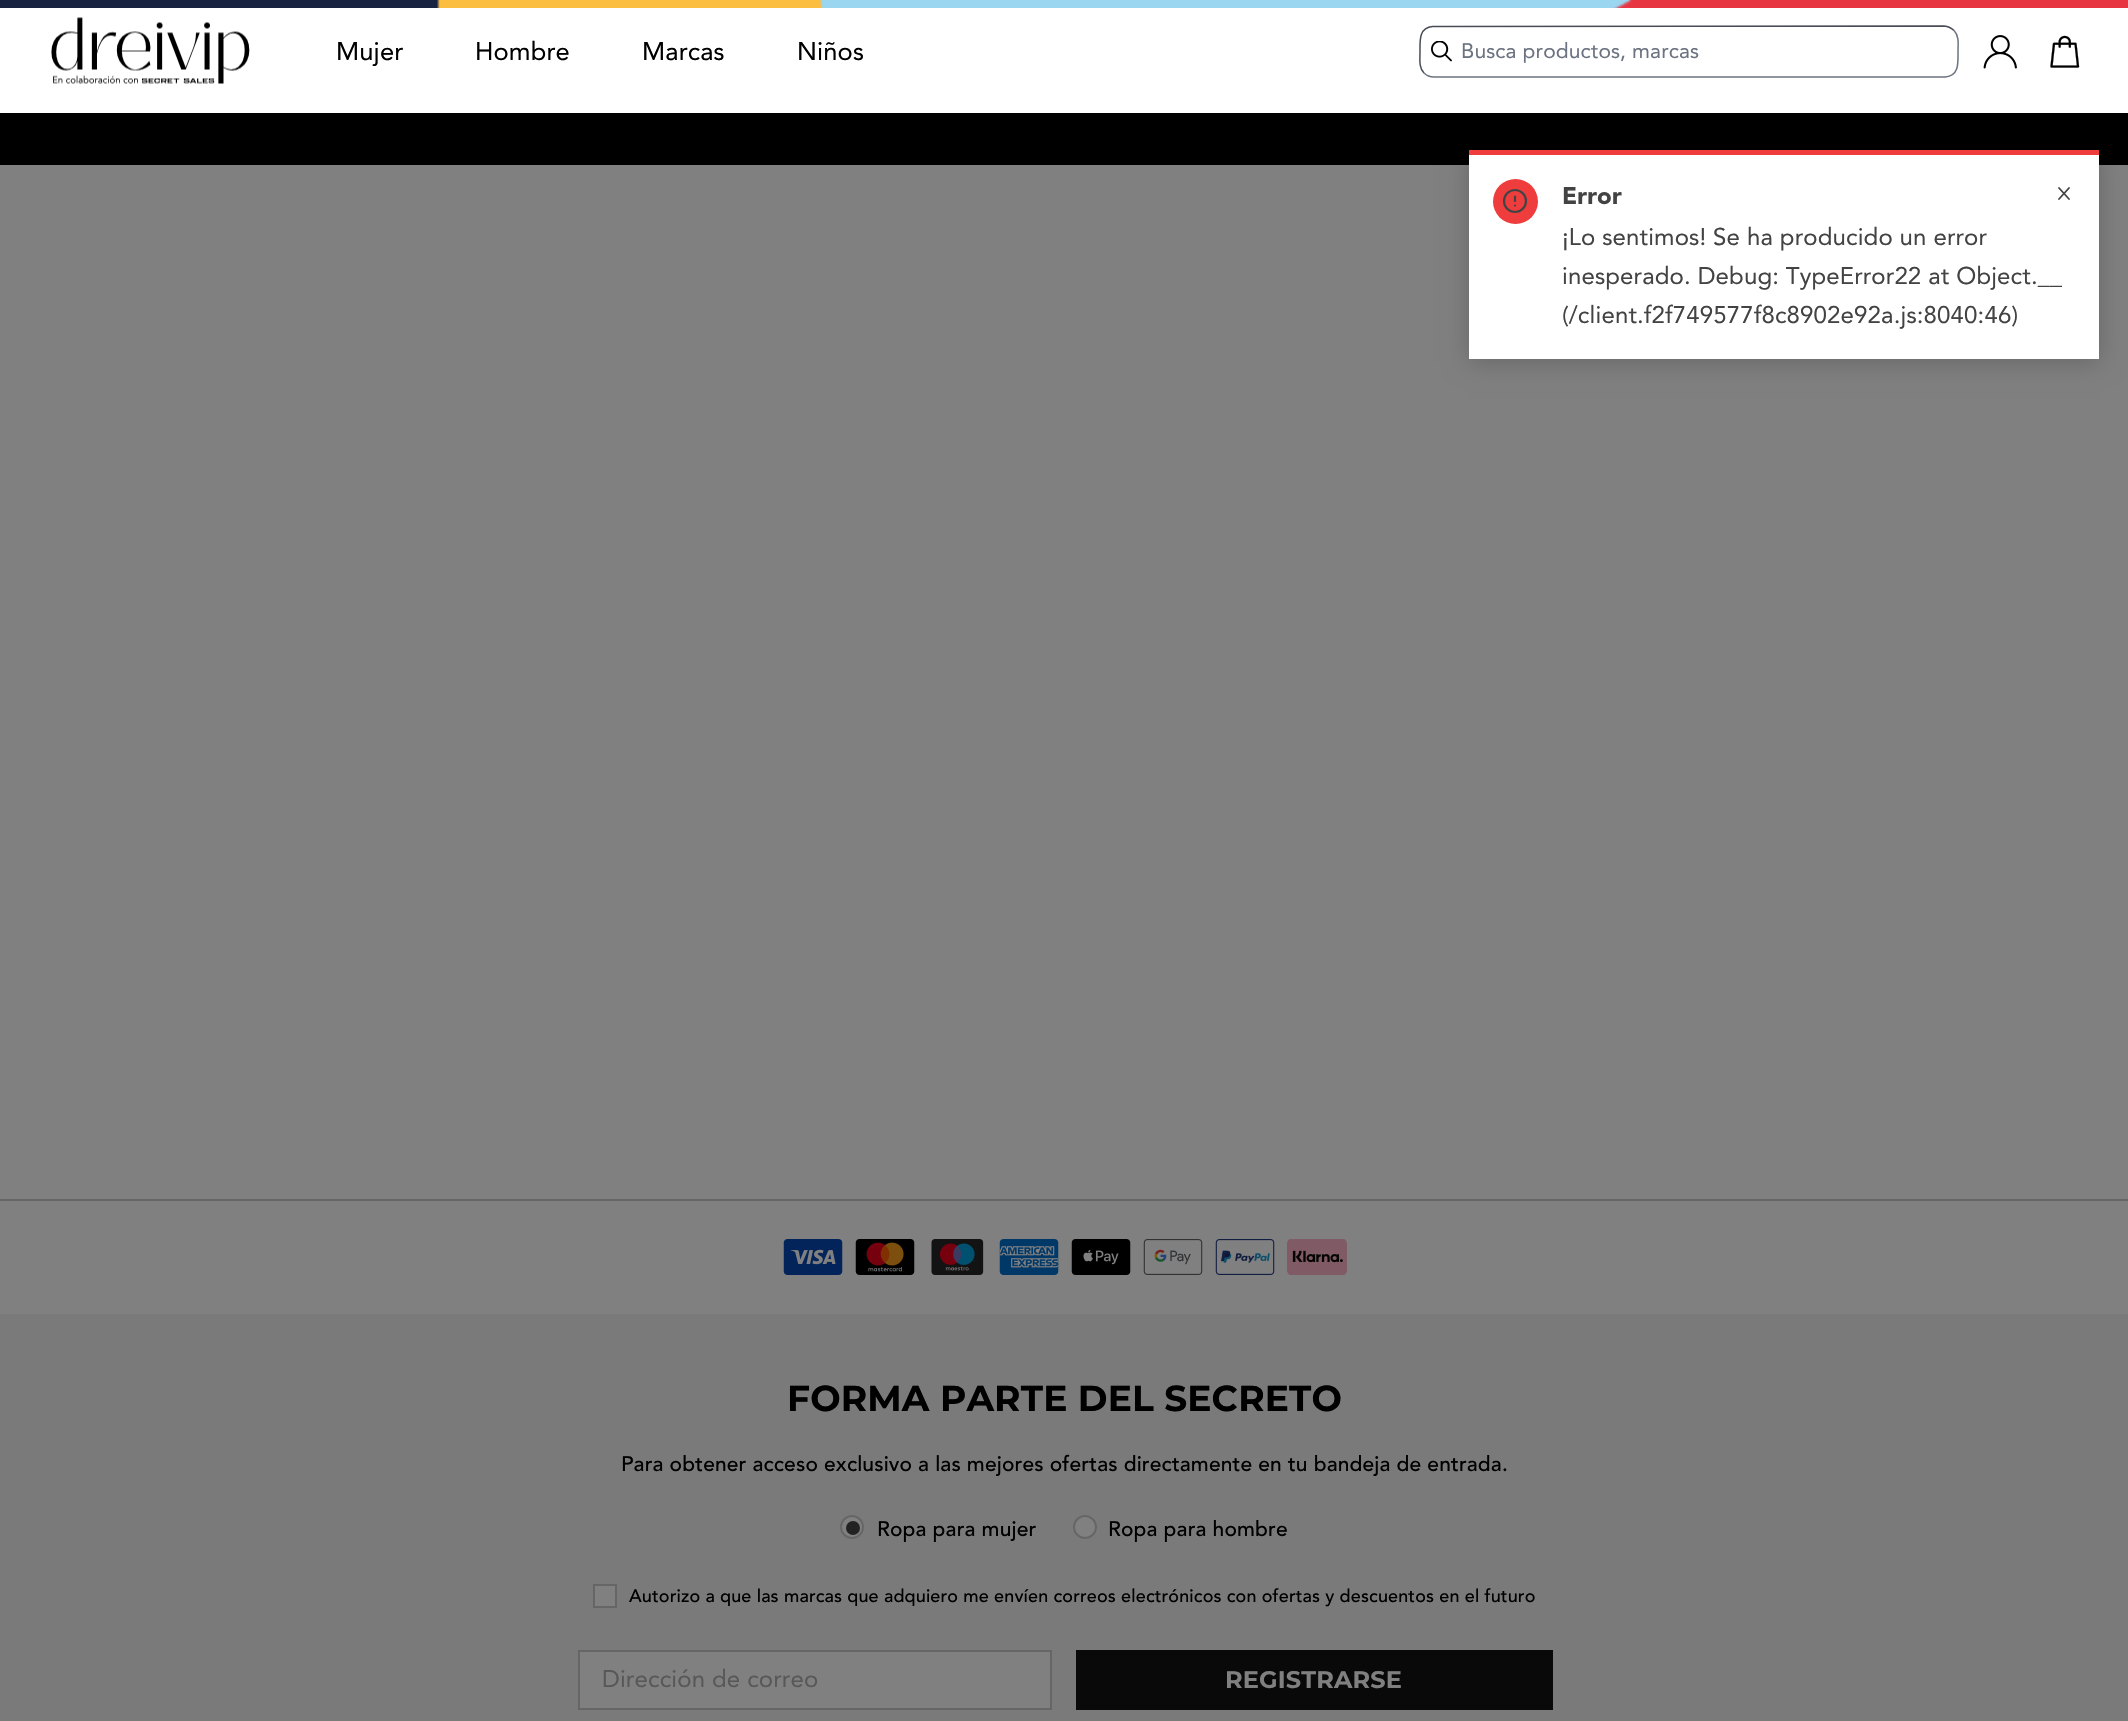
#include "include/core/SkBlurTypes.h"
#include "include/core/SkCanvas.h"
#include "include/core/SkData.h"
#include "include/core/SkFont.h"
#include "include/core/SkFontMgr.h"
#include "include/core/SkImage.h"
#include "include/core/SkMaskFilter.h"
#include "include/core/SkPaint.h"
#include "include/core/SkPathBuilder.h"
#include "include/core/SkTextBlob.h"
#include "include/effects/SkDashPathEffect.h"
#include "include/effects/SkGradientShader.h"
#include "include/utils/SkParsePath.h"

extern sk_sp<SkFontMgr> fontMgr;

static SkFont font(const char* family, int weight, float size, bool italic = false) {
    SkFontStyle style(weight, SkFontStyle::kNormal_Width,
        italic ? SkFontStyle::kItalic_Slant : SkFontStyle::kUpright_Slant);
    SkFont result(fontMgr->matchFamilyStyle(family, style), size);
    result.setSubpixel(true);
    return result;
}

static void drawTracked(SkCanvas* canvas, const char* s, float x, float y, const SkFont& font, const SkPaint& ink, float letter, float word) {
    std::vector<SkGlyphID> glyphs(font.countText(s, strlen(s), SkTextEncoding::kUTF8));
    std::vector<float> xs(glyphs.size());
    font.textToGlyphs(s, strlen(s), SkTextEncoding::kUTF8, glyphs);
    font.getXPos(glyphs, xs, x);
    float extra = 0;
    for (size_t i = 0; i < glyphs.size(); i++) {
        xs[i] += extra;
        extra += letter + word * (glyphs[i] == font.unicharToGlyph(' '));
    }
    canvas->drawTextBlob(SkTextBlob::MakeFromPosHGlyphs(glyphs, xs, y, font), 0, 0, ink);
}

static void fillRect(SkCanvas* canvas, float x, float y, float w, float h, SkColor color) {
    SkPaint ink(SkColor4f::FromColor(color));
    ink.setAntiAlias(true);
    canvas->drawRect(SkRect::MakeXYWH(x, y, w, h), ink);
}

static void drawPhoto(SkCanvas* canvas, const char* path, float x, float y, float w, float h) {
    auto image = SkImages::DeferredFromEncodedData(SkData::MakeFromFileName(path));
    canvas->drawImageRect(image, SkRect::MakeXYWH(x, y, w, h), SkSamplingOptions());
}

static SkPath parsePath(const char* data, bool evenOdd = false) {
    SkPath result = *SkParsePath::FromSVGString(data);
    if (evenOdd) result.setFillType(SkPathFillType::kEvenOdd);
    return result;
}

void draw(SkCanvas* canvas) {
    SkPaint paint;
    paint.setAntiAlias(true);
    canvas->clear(0xFF808080);
    fillRect(canvas, 0, 0, 2128, 113, 0xFFFFFFFF);
    drawPhoto(canvas, "assets/img1.png", 0, 0, 2128, 8);
    drawPhoto(canvas, "assets/img2.png", 51, 17, 199, 67);
    SkFont font1 = font("Avenir", 400, 25.5f);
    paint.setColor(0xFF000000);
    drawTracked(canvas, "Mujer", 336, 60, font1, paint, 0.15f, 0);
    drawTracked(canvas, "Hombre", 475, 60, font1, paint, 0.15f, 0);
    drawTracked(canvas, "Marcas", 642, 60, font1, paint, 0.15f, 0);
    drawTracked(canvas, "Niños", 797, 60, font1, paint, 0.15f, 0);
    paint.setStroke(true);
    paint.setStrokeWidth(1.5f);
    paint.setColor(0xFF6B7280);
    canvas->drawPath(parsePath("M1954 30.5C1959.5 36 1958 44.5 1958 52C1958 62 1959.5 76 1945.5 77H1434C1430 77 1426.5 75.5 1424 73"), paint);
    paint.setColor(0xFF474C55);
    canvas->drawPath(parsePath("M1424 73C1418.5 67.5 1420 59 1420 52C1420 41.5 1418.5 27.5 1432.5 26.5L1944 26C1948 26.5 1951.5 28 1954 30.5"), paint);
    drawPhoto(canvas, "assets/img3.png", 1431, 41, 21, 21);
    SkFont font2 = font("Avenir", 400, 21);
    paint.setStroke(false);
    paint.setColor(0xFF6B7280);
    drawTracked(canvas, "Busca productos, marcas", 1461, 58, font2, paint, 0.15f, 0);
    drawPhoto(canvas, "assets/img4.png", 1983, 35, 34, 34);
    drawPhoto(canvas, "assets/img5.png", 2050, 35, 30, 33);
    fillRect(canvas, 0, 113, 2128, 52, 0xFF000000);
    fillRect(canvas, 0, 1199, 2128, 2, 0xFF666666);
    drawPhoto(canvas, "assets/img6.png", 783, 1239, 60, 36);
    drawPhoto(canvas, "assets/img7.png", 855, 1239, 60, 36);
    drawPhoto(canvas, "assets/img8.png", 931, 1239, 53, 36);
    drawPhoto(canvas, "assets/img9.png", 999, 1239, 60, 36);
    drawPhoto(canvas, "assets/img10.png", 1071, 1239, 60, 36);
    drawPhoto(canvas, "assets/img11.png", 1143, 1239, 60, 36);
    drawPhoto(canvas, "assets/img12.png", 1215, 1239, 60, 36);
    drawPhoto(canvas, "assets/img13.png", 1287, 1239, 60, 36);
    fillRect(canvas, 0, 1314, 2128, 407, 0xFF7A7A7A);
    SkFont font3 = font("Montserrat", 700, 36);
    paint.setColor(0xFF000000);
    drawTracked(canvas, "FORMA PARTE DEL SECRETO", 787, 1411, font3, paint, 0.15f, 0);
    SkFont font4 = font("Avenir", 500, 21);
    drawTracked(canvas, "Para obtener acceso exclusivo a las mejores ofertas directamente en tu bandeja de entrada.", 621, 1471, font4, paint, 0.15f, 0);
    paint.setColor(0xFF808080);
    canvas->drawCircle(852, 1527, 11, paint);
    paint.setStroke(true);
    paint.setStrokeWidth(2);
    paint.setColor(0xFF666666);
    canvas->drawCircle(852, 1527, 11, paint);
    paint.setStroke(false);
    paint.setColor(0xFF222222);
    canvas->drawCircle(853, 1528, 7, paint);
    paint.setColor(0xFF000000);
    drawTracked(canvas, "Ropa para mujer", 877, 1536, font4, paint, 0.15f, 0);
    paint.setColor(0xFF808080);
    canvas->drawCircle(1085, 1527, 11, paint);
    paint.setStroke(true);
    paint.setColor(0xFF666666);
    canvas->drawCircle(1085, 1527, 11, paint);
    paint.setStroke(false);
    paint.setColor(0xFF000000);
    drawTracked(canvas, "Ropa para hombre", 1108, 1536, font4, paint, 0.15f, 0);
    paint.setColor(0xFF808080);
    canvas->drawRect(SkRect::MakeXYWH(594, 1585, 22, 22), paint);
    paint.setStroke(true);
    paint.setColor(0xFF666666);
    canvas->drawRect(SkRect::MakeXYWH(594, 1585, 22, 22), paint);
    SkFont font5 = font("Avenir", 500, 18);
    paint.setStroke(false);
    paint.setColor(0xFF000000);
    drawTracked(canvas, "Autorizo a que las marcas que adquiero me envíen correos electrónicos con ofertas y descuentos en el futuro", 629, 1602, font5, paint, 0.15f, 0);
    paint.setColor(0xFF808080);
    canvas->drawRect(SkRect::MakeXYWH(579, 1651, 472, 58), paint);
    paint.setStroke(true);
    paint.setColor(0xFF666666);
    canvas->drawRect(SkRect::MakeXYWH(579, 1651, 472, 58), paint);
    SkFont font6 = font("Avenir", 400, 24);
    paint.setStroke(false);
    paint.setColor(0xFF585858);
    drawTracked(canvas, "Dirección de correo", 602, 1687, font6, paint, 0.15f, 0);
    fillRect(canvas, 1076, 1650, 477, 60, 0xFF090909);
    SkFont font7 = font("Montserrat", 700, 24);
    paint.setColor(0xFF808080);
    drawTracked(canvas, "REGISTRARSE", 1225, 1688, font7, paint, 0.15f, 0);
    paint.setColor(0x33000000);
    paint.setMaskFilter(SkMaskFilter::MakeBlur(kNormal_SkBlurStyle, 12));
    canvas->drawRect(SkRect::MakeXYWH(1469, 153, 630, 209), paint);
    paint.setMaskFilter(nullptr);
    fillRect(canvas, 1469, 155, 630, 204, 0xFFFFFFFF);
    fillRect(canvas, 1469, 150, 630, 5, 0xFFEF3C3C);
    paint.setColor(0xFFEF3C3C);
    canvas->drawCircle(1515.5f, 201.5f, 22.5f, paint);
    paint.setStroke(true);
    paint.setStrokeWidth(2.2f);
    paint.setColor(0xFF434343);
    canvas->drawCircle(1515, 201, 11, paint);
    paint.setStrokeCap(SkPaint::kRound_Cap);
    paint.setStrokeJoin(SkPaint::kRound_Join);
    canvas->drawPath(parsePath("M1515 196.5V201M1515 205.5H1515"), paint);
    SkFont font8 = font("Avenir", 900, 24);
    paint.setStroke(false);
    drawTracked(canvas, "Error", 1562, 204, font8, paint, 0.15f, 0);
    paint.setStroke(true);
    paint.setStrokeWidth(1.8f);
    canvas->drawPath(parsePath("M2069 188L2059 199M2059 188L2069 199"), paint);
    paint.setStroke(false);
    drawTracked(canvas, "¡Lo sentimos! Se ha producido un error", 1562, 245, font6, paint, 0.15f, 0);
    drawTracked(canvas, "inesperado. Debug: TypeError22 at Object.__", 1562, 284, font6, paint, 0.15f, 0);
    drawTracked(canvas, "(/client.f2f749577f8c8902e92a.js:8040:46)", 1562, 323, font6, paint, 0.15f, 0);
}
